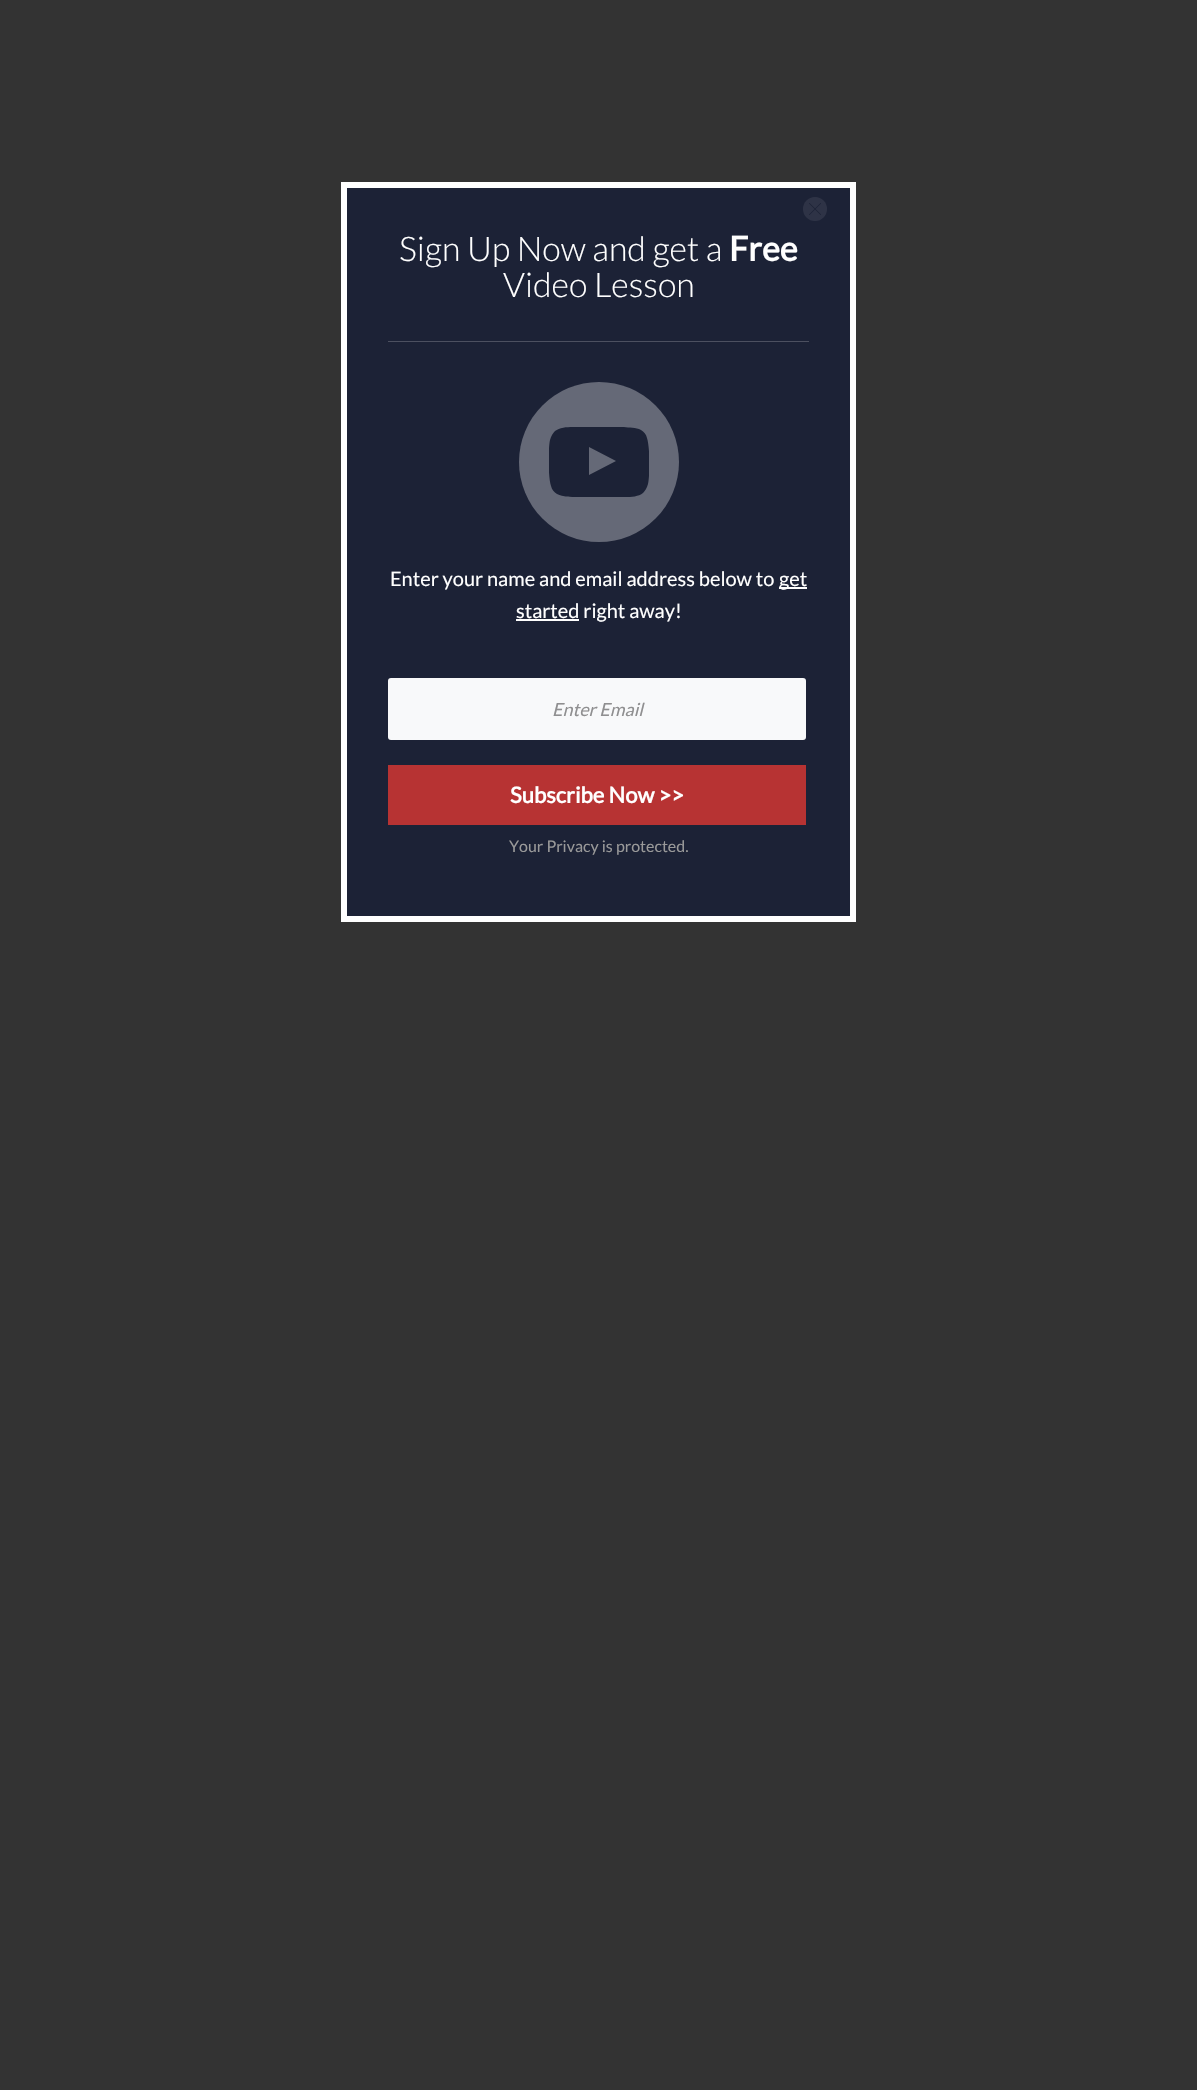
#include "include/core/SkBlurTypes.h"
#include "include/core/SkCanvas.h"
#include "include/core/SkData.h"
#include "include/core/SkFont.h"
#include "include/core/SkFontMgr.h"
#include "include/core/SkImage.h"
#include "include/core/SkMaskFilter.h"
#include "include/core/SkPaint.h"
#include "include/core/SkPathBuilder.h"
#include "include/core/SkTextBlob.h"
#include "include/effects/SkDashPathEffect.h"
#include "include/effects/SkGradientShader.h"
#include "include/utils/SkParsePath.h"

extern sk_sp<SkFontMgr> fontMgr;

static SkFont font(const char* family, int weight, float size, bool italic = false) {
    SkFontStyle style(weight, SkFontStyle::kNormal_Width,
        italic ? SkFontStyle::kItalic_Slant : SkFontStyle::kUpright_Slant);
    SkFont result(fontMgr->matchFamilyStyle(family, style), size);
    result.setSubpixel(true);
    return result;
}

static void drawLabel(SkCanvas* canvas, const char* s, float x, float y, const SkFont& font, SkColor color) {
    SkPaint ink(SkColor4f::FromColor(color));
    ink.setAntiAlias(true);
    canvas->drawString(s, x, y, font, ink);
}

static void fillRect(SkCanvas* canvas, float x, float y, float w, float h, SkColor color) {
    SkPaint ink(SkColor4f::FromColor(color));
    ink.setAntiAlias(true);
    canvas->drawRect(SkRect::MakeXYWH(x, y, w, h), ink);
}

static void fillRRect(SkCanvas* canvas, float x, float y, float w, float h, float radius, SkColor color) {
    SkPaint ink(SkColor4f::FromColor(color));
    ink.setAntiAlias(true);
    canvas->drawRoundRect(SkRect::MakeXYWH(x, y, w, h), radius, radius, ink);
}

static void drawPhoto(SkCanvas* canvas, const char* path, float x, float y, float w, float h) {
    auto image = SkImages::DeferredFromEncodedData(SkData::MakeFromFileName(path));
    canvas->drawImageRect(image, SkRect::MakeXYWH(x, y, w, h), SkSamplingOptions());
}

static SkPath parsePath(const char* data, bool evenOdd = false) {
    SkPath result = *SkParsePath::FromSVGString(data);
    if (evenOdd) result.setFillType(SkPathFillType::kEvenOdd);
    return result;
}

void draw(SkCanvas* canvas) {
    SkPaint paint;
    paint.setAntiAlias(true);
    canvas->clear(0xFF333333);
    paint.setColor(0xFF1C2236);
    canvas->drawRect(SkRect::MakeXYWH(344, 185, 509, 734), paint);
    paint.setStroke(true);
    paint.setStrokeWidth(6);
    paint.setColor(0xFFFFFFFF);
    canvas->drawRect(SkRect::MakeXYWH(344, 185, 509, 734), paint);
    paint.setStroke(false);
    paint.setColor(0xFF2E3346);
    canvas->drawCircle(815, 209, 12, paint);
    drawPhoto(canvas, "assets/img1.png", 809, 203, 12, 12);
    SkFont font1 = font("Lato", 300, 34);
    drawLabel(canvas, "Sign Up Now and get a", 399, 261, font1, 0xFFFFFFFF);
    SkFont font2 = font("Lato", 700, 34);
    drawLabel(canvas, "Free", 729, 261, font2, 0xFFFFFFFF);
    drawLabel(canvas, "Video Lesson", 503, 297, font1, 0xFFFFFFFF);
    fillRect(canvas, 388, 341, 421, 1, 0xFF4C5060);
    paint.setColor(0xFF656977);
    canvas->drawCircle(599, 462, 80, paint);
    canvas->save();
    canvas->clipRect(SkRect::MakeXYWH(549, 412, 100, 100));
    paint.setColor(0xFF1C2236);
    canvas->drawPath(parsePath("M589 475L616 461L589 447ZM599 427H624C629 428 636 427 641 430C644 432 646 434 647 438C650 447 650 475 648 484C647 488 645 491 643 493C637 498 625 497 619 497H599H577C571 497 563 497 557 494C554 492 552 490 551 486C548 477 548 449 550 440C551 436 553 433 555 431C561 426 573 427 579 427Z"), paint);
    canvas->restore();
    SkFont font3 = font("Lato", 400, 20);
    drawLabel(canvas, "Enter your name and email address below to", 390, 586, font3, 0xFFFFFFFF);
    fillRect(canvas, 779, 587, 28, 2, 0xFFFEFEFE);
    drawLabel(canvas, "get", 779, 586, font3, 0xFFFFFFFF);
    fillRect(canvas, 516, 619, 63, 2, 0xFFFEFEFE);
    drawLabel(canvas, "started right away!", 516, 618, font3, 0xFFFFFFFF);
    fillRRect(canvas, 388, 678, 418, 62, 3, 0xFFF8F9FA);
    SkFont font4 = font("Lato", 400, 18, true);
    drawLabel(canvas, "Enter Email", 552, 716, font4, 0xFF8F8F90);
    fillRect(canvas, 388, 765, 418, 60, 0xFFB73333);
    SkFont font5 = font("Lato", 700, 22);
    drawLabel(canvas, "Subscribe Now >>", 510, 803, font5, 0xFFFFFFFF);
    SkFont font6 = font("Lato", 400, 16);
    drawLabel(canvas, "Your Privacy is protected.", 509, 852, font6, 0xFF999999);
}
